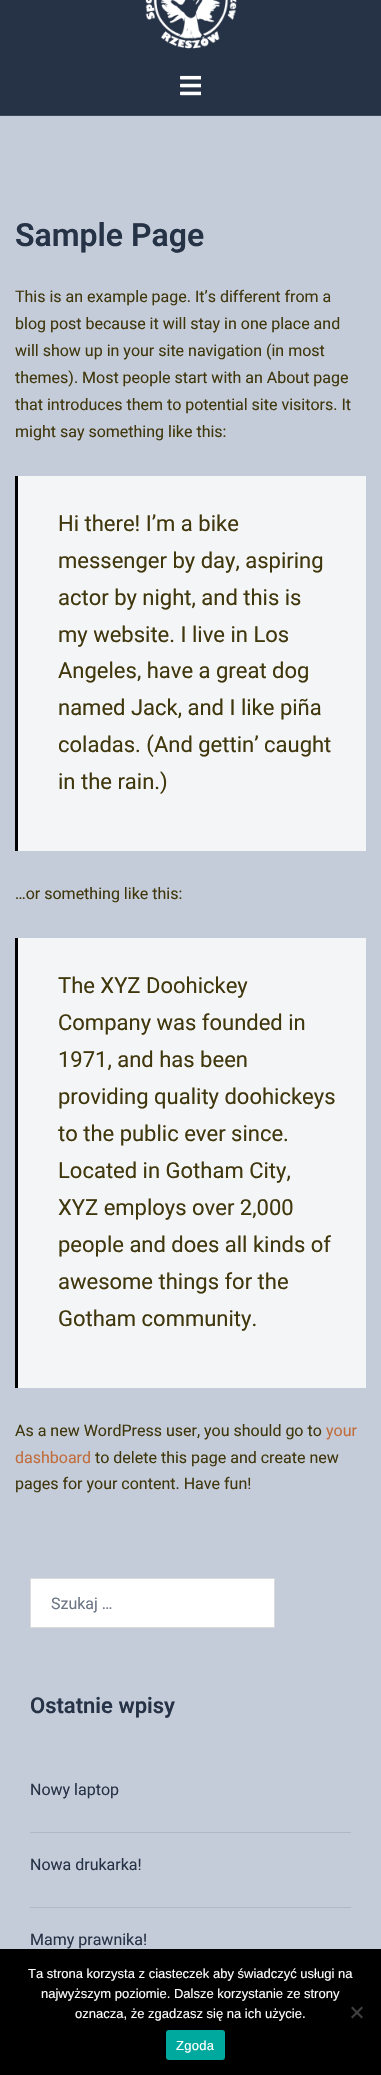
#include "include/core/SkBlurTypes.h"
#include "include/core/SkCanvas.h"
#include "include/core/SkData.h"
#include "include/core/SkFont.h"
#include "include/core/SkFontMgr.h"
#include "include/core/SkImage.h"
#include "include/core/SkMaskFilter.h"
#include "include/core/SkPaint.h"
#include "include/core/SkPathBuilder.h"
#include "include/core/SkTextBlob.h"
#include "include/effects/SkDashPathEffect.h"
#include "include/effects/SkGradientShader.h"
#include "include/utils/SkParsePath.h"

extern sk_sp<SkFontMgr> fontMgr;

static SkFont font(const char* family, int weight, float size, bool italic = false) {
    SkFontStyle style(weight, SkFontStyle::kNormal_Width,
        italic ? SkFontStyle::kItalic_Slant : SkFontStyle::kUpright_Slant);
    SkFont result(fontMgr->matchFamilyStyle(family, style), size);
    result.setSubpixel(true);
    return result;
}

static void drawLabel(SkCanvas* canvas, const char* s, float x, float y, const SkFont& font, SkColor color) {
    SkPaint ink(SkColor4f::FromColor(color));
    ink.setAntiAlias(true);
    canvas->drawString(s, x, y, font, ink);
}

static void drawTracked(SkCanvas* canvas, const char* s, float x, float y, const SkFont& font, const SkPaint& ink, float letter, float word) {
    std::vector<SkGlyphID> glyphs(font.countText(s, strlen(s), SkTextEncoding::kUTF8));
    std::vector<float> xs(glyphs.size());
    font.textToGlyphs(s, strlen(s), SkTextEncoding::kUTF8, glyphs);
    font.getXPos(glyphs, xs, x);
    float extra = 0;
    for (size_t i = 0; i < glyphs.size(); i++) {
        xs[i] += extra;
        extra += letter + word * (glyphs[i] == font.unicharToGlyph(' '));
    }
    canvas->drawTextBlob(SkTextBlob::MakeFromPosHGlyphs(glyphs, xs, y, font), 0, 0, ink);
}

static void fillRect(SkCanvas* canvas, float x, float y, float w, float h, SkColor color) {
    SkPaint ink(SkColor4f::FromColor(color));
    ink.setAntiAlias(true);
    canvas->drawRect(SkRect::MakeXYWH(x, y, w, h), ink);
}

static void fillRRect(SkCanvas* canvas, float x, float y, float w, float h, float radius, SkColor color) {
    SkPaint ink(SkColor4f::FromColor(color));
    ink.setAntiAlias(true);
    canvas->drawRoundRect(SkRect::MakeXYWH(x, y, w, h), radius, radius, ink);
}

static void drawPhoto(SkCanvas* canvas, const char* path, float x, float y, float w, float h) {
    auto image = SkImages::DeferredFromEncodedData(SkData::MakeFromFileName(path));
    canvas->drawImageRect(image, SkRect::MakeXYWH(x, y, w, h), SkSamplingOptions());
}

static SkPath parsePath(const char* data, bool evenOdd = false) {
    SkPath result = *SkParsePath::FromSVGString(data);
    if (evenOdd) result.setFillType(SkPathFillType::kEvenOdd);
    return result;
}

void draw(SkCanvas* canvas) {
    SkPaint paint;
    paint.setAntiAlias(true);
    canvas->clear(0xFFC5CCD9);
    fillRect(canvas, 0, 0, 381, 115, 0xFF263246);
    fillRect(canvas, 0, 115, 381, 1, 0xFF3C4759);
    drawPhoto(canvas, "assets/img1.png", 145, 0, 92, 49);
    drawPhoto(canvas, "assets/img2.png", 180, 75, 21, 21);
    SkFont font1 = font("Roboto", 600, 32);
    drawLabel(canvas, "Sample Page", 15, 246, font1, 0xFF263246);
    SkFont font2 = font("Roboto", 400, 16);
    drawLabel(canvas, "This is an example page. It’s different from a", 15, 302, font2, 0xFF40370D);
    drawLabel(canvas, "blog post because it will stay in one place and", 15, 329, font2, 0xFF40370D);
    drawLabel(canvas, "will show up in your site navigation (in most", 15, 356, font2, 0xFF40370D);
    drawLabel(canvas, "themes). Most people start with an About page", 15, 383, font2, 0xFF40370D);
    drawLabel(canvas, "that introduces them to potential site visitors. It", 15, 410, font2, 0xFF40370D);
    drawLabel(canvas, "might say something like this:", 15, 437, font2, 0xFF40370D);
    fillRect(canvas, 18, 476, 348, 375, 0xFFF4F5F7);
    fillRect(canvas, 15, 476, 3, 375, 0xFF000000);
    SkFont font3 = font("Roboto", 400, 22);
    drawLabel(canvas, "Hi there! I’m a bike", 58, 531, font3, 0xFF40370D);
    drawLabel(canvas, "messenger by day, aspiring", 58, 568, font3, 0xFF40370D);
    drawLabel(canvas, "actor by night, and this is", 58, 605, font3, 0xFF40370D);
    drawLabel(canvas, "my website. I live in Los", 58, 642, font3, 0xFF40370D);
    drawLabel(canvas, "Angeles, have a great dog", 58, 678, font3, 0xFF40370D);
    drawLabel(canvas, "named Jack, and I like piña", 58, 715, font3, 0xFF40370D);
    drawLabel(canvas, "coladas. (And gettin’ caught", 58, 752, font3, 0xFF40370D);
    drawLabel(canvas, "in the rain.)", 58, 789, font3, 0xFF40370D);
    drawLabel(canvas, "…or something like this:", 15, 899, font2, 0xFF40370D);
    fillRect(canvas, 18, 938, 348, 450, 0xFFF4F5F7);
    fillRect(canvas, 15, 938, 3, 450, 0xFF000000);
    drawLabel(canvas, "The XYZ Doohickey", 58, 993, font3, 0xFF40370D);
    drawLabel(canvas, "Company was founded in", 58, 1030, font3, 0xFF40370D);
    drawLabel(canvas, "1971, and has been", 58, 1067, font3, 0xFF40370D);
    drawLabel(canvas, "providing quality doohickeys", 58, 1104, font3, 0xFF40370D);
    drawLabel(canvas, "to the public ever since.", 58, 1141, font3, 0xFF40370D);
    drawLabel(canvas, "Located in Gotham City,", 58, 1178, font3, 0xFF40370D);
    drawLabel(canvas, "XYZ employs over 2,000", 58, 1215, font3, 0xFF40370D);
    drawLabel(canvas, "people and does all kinds of", 58, 1252, font3, 0xFF40370D);
    drawLabel(canvas, "awesome things for the", 58, 1289, font3, 0xFF40370D);
    drawLabel(canvas, "Gotham community.", 58, 1326, font3, 0xFF40370D);
    drawLabel(canvas, "As a new WordPress user, you should go to", 15, 1436, font2, 0xFF40370D);
    drawLabel(canvas, "your", 326, 1436, font2, 0xFFC16D3C);
    drawLabel(canvas, "dashboard", 15, 1463, font2, 0xFFC16D3C);
    drawLabel(canvas, "to delete this page and create new", 95, 1463, font2, 0xFF40370D);
    drawLabel(canvas, "pages for your content. Have fun!", 15, 1489, font2, 0xFF40370D);
    paint.setColor(0xFFFFFFFF);
    canvas->drawRect(SkRect::MakeXYWH(30.5f, 1578.5f, 244, 49), paint);
    paint.setStroke(true);
    paint.setStrokeWidth(1);
    paint.setColor(0xFFDBDBDB);
    canvas->drawRect(SkRect::MakeXYWH(30.5f, 1578.5f, 244, 49), paint);
    drawLabel(canvas, "Szukaj …", 51, 1609, font2, 0xFF6D7685);
    SkFont font4 = font("Roboto", 600, 22);
    drawLabel(canvas, "Ostatnie wpisy", 30, 1713, font4, 0xFF263246);
    fillRect(canvas, 30, 1832, 321, 1, 0xFFB1B8C3);
    drawLabel(canvas, "Nowy laptop", 30, 1795, font2, 0xFF263246);
    fillRect(canvas, 30, 1907, 321, 1, 0xFFB1B8C3);
    drawLabel(canvas, "Nowa drukarka!", 30, 1870, font2, 0xFF263246);
    drawLabel(canvas, "Mamy prawnika!", 30, 1945, font2, 0xFF263246);
    fillRect(canvas, 0, 1949, 381, 126, 0xFF000000);
    SkFont font5 = font("Liberation Sans", 400, 13);
    drawLabel(canvas, "Ta strona korzysta z ciasteczek aby świadczyć usługi na", 28, 1978, font5, 0xFFFFFFFF);
    drawLabel(canvas, "najwyższym poziomie. Dalsze korzystanie ze strony", 41, 1998, font5, 0xFFFFFFFF);
    drawLabel(canvas, "oznacza, że zgadzasz się na ich użycie.", 75, 2018, font5, 0xFFFFFFFF);
    paint.setStroke(false);
    paint.setColor(0xFF404040);
    canvas->drawPath(parsePath("M361.5 2006.5L363 2008L352.5 2018.5L351 2017Z"), paint);
    canvas->drawPath(parsePath("M351 2008L352.5 2006.5L363 2017L361.5 2018.5Z"), paint);
    fillRRect(canvas, 166, 2030, 59, 30, 3, 0xFF00A99D);
    paint.setColor(0xFFFFFFFF);
    drawTracked(canvas, "Zgoda", 176, 2050, font5, paint, 0.25f, 0);
}
